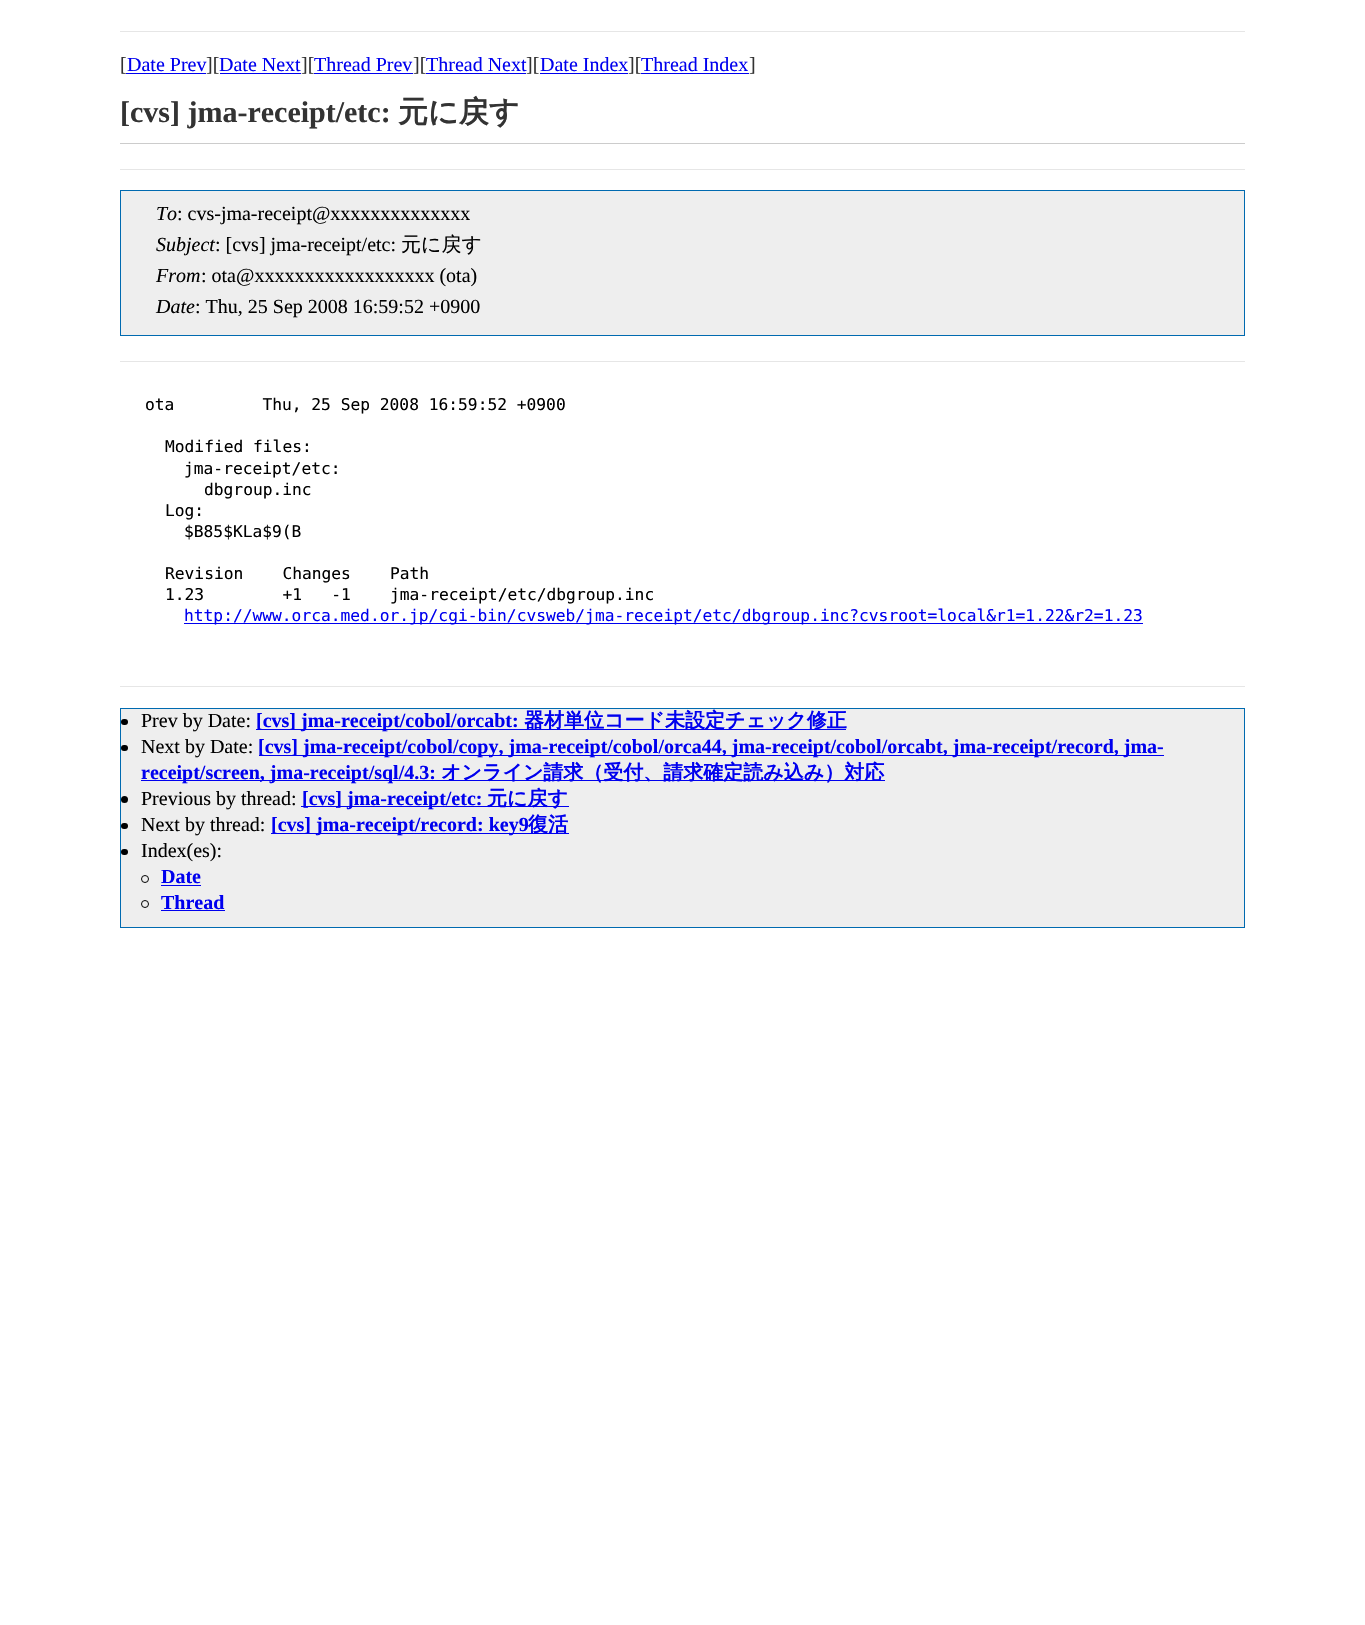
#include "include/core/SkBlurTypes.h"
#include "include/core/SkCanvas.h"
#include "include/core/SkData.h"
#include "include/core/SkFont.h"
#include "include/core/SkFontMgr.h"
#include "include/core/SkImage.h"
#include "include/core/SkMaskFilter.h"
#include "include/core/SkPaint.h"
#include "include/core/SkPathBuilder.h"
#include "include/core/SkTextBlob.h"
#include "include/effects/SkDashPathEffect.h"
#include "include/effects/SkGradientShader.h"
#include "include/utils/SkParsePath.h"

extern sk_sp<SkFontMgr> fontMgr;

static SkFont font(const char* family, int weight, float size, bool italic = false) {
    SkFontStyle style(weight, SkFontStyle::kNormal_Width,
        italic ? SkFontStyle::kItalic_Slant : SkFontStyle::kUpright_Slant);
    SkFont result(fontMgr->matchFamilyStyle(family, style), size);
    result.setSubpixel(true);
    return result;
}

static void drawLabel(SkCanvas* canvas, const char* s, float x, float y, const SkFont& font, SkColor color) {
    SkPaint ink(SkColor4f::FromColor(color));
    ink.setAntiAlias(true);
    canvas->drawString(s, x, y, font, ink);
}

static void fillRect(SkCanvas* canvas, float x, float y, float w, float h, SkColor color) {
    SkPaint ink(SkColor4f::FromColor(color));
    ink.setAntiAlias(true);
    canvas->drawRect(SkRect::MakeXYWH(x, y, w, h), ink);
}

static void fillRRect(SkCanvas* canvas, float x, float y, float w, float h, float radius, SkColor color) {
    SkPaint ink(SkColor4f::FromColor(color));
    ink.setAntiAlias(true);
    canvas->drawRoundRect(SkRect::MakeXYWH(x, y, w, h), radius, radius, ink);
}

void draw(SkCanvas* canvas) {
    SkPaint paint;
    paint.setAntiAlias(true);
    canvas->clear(0xFFFFFFFF);
    fillRect(canvas, 120, 31, 1125, 1, 0xFFE6E6E6);
    SkFont font1 = font("Liberation Serif", 400, 20);
    drawLabel(canvas, "[", 120, 71, font1, 0xFF333333);
    drawLabel(canvas, "Date Prev", 127, 71, font1, 0xFF0000EE);
    fillRect(canvas, 126, 73, 80, 1, 0xFF0000EE);
    drawLabel(canvas, "][", 206, 71, font1, 0xFF333333);
    drawLabel(canvas, "Date Next", 219, 71, font1, 0xFF0000EE);
    fillRect(canvas, 220, 73, 81, 1, 0xFF0000EE);
    drawLabel(canvas, "][", 301, 71, font1, 0xFF333333);
    drawLabel(canvas, "Thread Prev", 314, 71, font1, 0xFF0000EE);
    fillRect(canvas, 314, 73, 99, 1, 0xFF0000EE);
    drawLabel(canvas, "][", 413, 71, font1, 0xFF333333);
    drawLabel(canvas, "Thread Next", 426, 71, font1, 0xFF0000EE);
    fillRect(canvas, 426, 73, 100, 1, 0xFF0000EE);
    drawLabel(canvas, "][", 526, 71, font1, 0xFF333333);
    drawLabel(canvas, "Date Index", 540, 71, font1, 0xFF0000EE);
    fillRect(canvas, 540, 73, 88, 1, 0xFF0000EE);
    drawLabel(canvas, "][", 628, 71, font1, 0xFF333333);
    drawLabel(canvas, "Thread Index", 641, 71, font1, 0xFF0000EE);
    fillRect(canvas, 641, 73, 108, 1, 0xFF0000EE);
    drawLabel(canvas, "]", 749, 71, font1, 0xFF333333);
    fillRect(canvas, 120, 143, 1125, 1, 0xFFCCCCCC);
    SkFont font2 = font("Liberation Serif", 700, 30);
    drawLabel(canvas, "[cvs] jma-receipt/etc:", 120, 122, font2, 0xFF333333);
    SkFont font3 = font("WenQuanYi Zen Hei", 700, 30);
    drawLabel(canvas, "元に戻す", 398, 122, font3, 0xFF333333);
    fillRect(canvas, 120, 169, 1125, 1, 0xFFE6E6E6);
    paint.setColor(0xFFEEEEEE);
    canvas->drawRect(SkRect::MakeXYWH(120.5f, 190.5f, 1124, 145), paint);
    paint.setStroke(true);
    paint.setStrokeWidth(1);
    paint.setColor(0xFF006AB0);
    canvas->drawRect(SkRect::MakeXYWH(120.5f, 190.5f, 1124, 145), paint);
    SkFont font4 = font("Liberation Serif", 400, 20, true);
    drawLabel(canvas, "To", 156, 220, font4, 0xFF000000);
    drawLabel(canvas, ": cvs-jma-receipt@xxxxxxxxxxxxxx", 177, 220, font1, 0xFF000000);
    drawLabel(canvas, "Subject", 156, 251, font4, 0xFF000000);
    drawLabel(canvas, ": [cvs] jma-receipt/etc:", 215, 251, font1, 0xFF000000);
    SkFont font5 = font("WenQuanYi Zen Hei", 500, 20);
    drawLabel(canvas, "元に戻す", 401, 251, font5, 0xFF000000);
    drawLabel(canvas, "From", 156, 282, font4, 0xFF000000);
    drawLabel(canvas, ": ota@xxxxxxxxxxxxxxxxxx (ota)", 201, 282, font1, 0xFF000000);
    drawLabel(canvas, "Date", 156, 313, font4, 0xFF000000);
    drawLabel(canvas, ": Thu, 25 Sep 2008 16:59:52 +0900", 195, 313, font1, 0xFF000000);
    fillRect(canvas, 120, 361, 1125, 1, 0xFFE6E6E6);
    SkFont font6 = font("DejaVu Sans Mono", 400, 16.25f);
    drawLabel(canvas, "ota         Thu, 25 Sep 2008 16:59:52 +0900", 145, 410, font6, 0xFF000000);
    drawLabel(canvas, "Modified files:", 165, 452, font6, 0xFF000000);
    drawLabel(canvas, "jma-receipt/etc:", 184, 474, font6, 0xFF000000);
    drawLabel(canvas, "dbgroup.inc", 204, 495, font6, 0xFF000000);
    drawLabel(canvas, "Log:", 165, 516, font6, 0xFF000000);
    drawLabel(canvas, "$B85$KLa$9(B", 184, 537, font6, 0xFF000000);
    drawLabel(canvas, "Revision    Changes    Path", 165, 579, font6, 0xFF000000);
    drawLabel(canvas, "1.23        +1   -1    jma-receipt/etc/dbgroup.inc", 165, 600, font6, 0xFF000000);
    fillRect(canvas, 184, 623, 959, 1, 0xFF0000EE);
    drawLabel(canvas, "http://www.orca.med.or.jp/cgi-bin/cvsweb/jma-receipt/etc/dbgroup.inc?cvsroot=local&r1=1.22&r2=1.23", 184, 621, font6, 0xFF0000EE);
    fillRect(canvas, 120, 686, 1125, 1, 0xFFE6E6E6);
    paint.setStroke(false);
    paint.setColor(0xFFEEEEEE);
    canvas->drawRect(SkRect::MakeXYWH(120.5f, 708.5f, 1124, 219), paint);
    paint.setStroke(true);
    paint.setColor(0xFF006AB0);
    canvas->drawRect(SkRect::MakeXYWH(120.5f, 708.5f, 1124, 219), paint);
    fillRRect(canvas, 121, 719, 7, 6, 3, 0xFF000000);
    drawLabel(canvas, "Prev by Date:", 141, 727, font1, 0xFF000000);
    fillRect(canvas, 256, 729, 590, 1, 0xFF0000EE);
    SkFont font7 = font("Liberation Serif", 700, 20);
    drawLabel(canvas, "[cvs] jma-receipt/cobol/orcabt:", 256, 727, font7, 0xFF0000EE);
    SkFont font8 = font("WenQuanYi Zen Hei", 700, 20);
    drawLabel(canvas, "器材単位コード未設定チェック修正", 524, 727, font8, 0xFF0000EE);
    fillRRect(canvas, 121, 745, 7, 6, 3, 0xFF000000);
    drawLabel(canvas, "Next by Date:", 141, 753, font1, 0xFF000000);
    fillRect(canvas, 259, 755, 905, 1, 0xFF0000EE);
    drawLabel(canvas, "[cvs] jma-receipt/cobol/copy, jma-receipt/cobol/orca44, jma-receipt/cobol/orcabt, jma-receipt/record, jma-", 258, 753, font7, 0xFF0000EE);
    fillRect(canvas, 141, 780, 744, 1, 0xFF0000EE);
    drawLabel(canvas, "receipt/screen, jma-receipt/sql/4.3:", 141, 779, font7, 0xFF0000EE);
    drawLabel(canvas, "オンライン請求（受付、請求確定読み込み）対応", 441, 779, font8, 0xFF0000EE);
    paint.setStroke(false);
    paint.setColor(0xFF000000);
    canvas->drawCircle(124.5f, 799.5f, 3.5f, paint);
    drawLabel(canvas, "Previous by thread:", 141, 805, font1, 0xFF000000);
    fillRect(canvas, 301, 806, 268, 1, 0xFF0000EE);
    drawLabel(canvas, "[cvs] jma-receipt/etc:", 302, 805, font7, 0xFF0000EE);
    drawLabel(canvas, "元に戻す", 487, 805, font8, 0xFF0000EE);
    fillRRect(canvas, 121, 823, 7, 6, 3, 0xFF000000);
    drawLabel(canvas, "Next by thread:", 141, 831, font1, 0xFF000000);
    fillRect(canvas, 271, 833, 298, 1, 0xFF0000EE);
    drawLabel(canvas, "[cvs] jma-receipt/record: key9", 271, 831, font7, 0xFF0000EE);
    drawLabel(canvas, "復活", 528, 831, font8, 0xFF0000EE);
    fillRRect(canvas, 121, 849, 7, 6, 3, 0xFF000000);
    drawLabel(canvas, "Index(es):", 141, 857, font1, 0xFF000000);
    paint.setStroke(true);
    canvas->drawCircle(145, 879, 3.5f, paint);
    drawLabel(canvas, "Date", 161, 883, font7, 0xFF0000EE);
    fillRect(canvas, 161, 885, 40, 1, 0xFF0000EE);
    canvas->drawCircle(145, 904, 3.5f, paint);
    drawLabel(canvas, "Thread", 161, 909, font7, 0xFF0000EE);
    fillRect(canvas, 161, 910, 64, 1, 0xFF0000EE);
}
